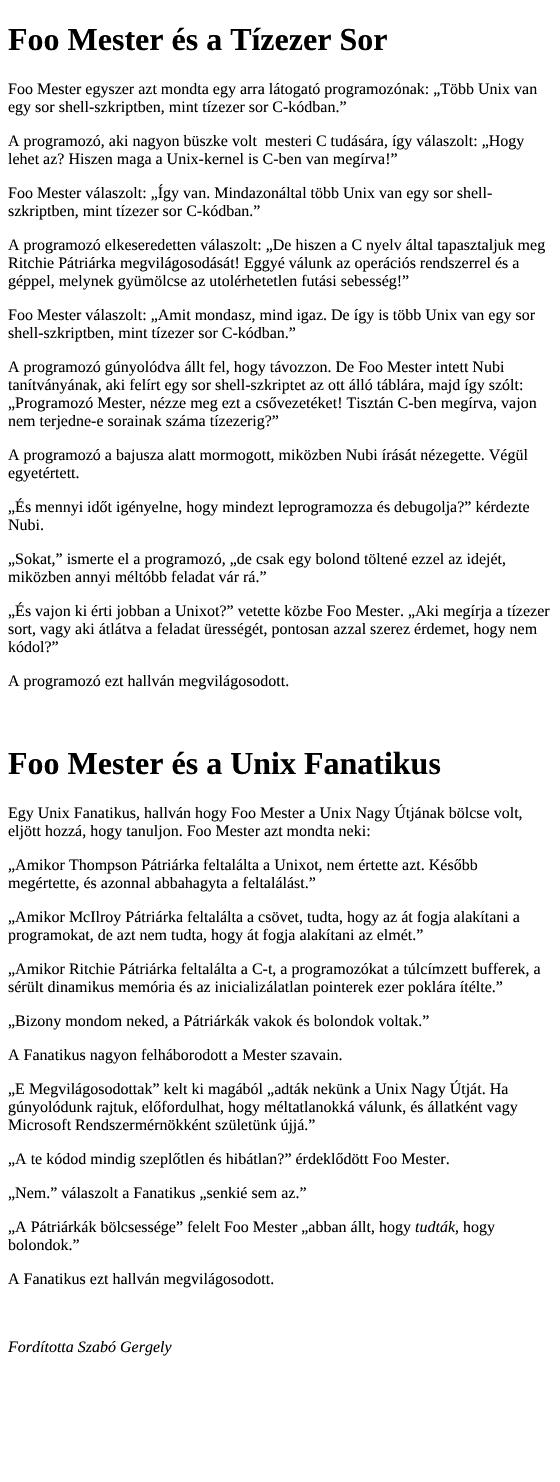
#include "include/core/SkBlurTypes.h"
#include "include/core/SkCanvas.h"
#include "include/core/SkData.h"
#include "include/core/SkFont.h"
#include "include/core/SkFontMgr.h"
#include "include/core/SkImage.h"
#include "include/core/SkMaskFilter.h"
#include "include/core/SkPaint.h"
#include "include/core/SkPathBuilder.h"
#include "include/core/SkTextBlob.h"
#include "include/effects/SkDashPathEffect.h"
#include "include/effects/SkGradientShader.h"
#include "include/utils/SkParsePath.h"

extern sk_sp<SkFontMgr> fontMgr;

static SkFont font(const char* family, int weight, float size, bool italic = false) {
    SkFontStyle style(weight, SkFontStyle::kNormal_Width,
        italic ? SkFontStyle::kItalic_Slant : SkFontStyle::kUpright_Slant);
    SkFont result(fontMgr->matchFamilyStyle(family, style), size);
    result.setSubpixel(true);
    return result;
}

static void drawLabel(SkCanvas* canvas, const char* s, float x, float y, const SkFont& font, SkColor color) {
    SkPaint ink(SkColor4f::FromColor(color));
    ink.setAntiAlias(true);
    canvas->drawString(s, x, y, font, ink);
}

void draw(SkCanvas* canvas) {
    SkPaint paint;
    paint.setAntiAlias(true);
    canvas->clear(0xFFFFFFFF);
    SkFont font1 = font("Liberation Serif", 700, 32);
    drawLabel(canvas, "Foo Mester és a Tízezer Sor", 8, 50, font1, 0xFF000000);
    SkFont font2 = font("Liberation Serif", 400, 16);
    drawLabel(canvas, "Foo Mester egyszer azt mondta egy arra látogató programozónak: „Több Unix van", 8, 94, font2, 0xFF000000);
    drawLabel(canvas, "egy sor shell-szkriptben, mint tízezer sor C-kódban.”", 8, 112, font2, 0xFF000000);
    drawLabel(canvas, "A programozó, aki nagyon büszke volt  mesteri C tudására, így válaszolt: „Hogy", 8, 146, font2, 0xFF000000);
    drawLabel(canvas, "lehet az? Hiszen maga a Unix-kernel is C-ben van megírva!”", 8, 164, font2, 0xFF000000);
    drawLabel(canvas, "Foo Mester válaszolt: „Így van. Mindazonáltal több Unix van egy sor shell-", 8, 198, font2, 0xFF000000);
    drawLabel(canvas, "szkriptben, mint tízezer sor C-kódban.”", 8, 216, font2, 0xFF000000);
    drawLabel(canvas, "A programozó elkeseredetten válaszolt: „De hiszen a C nyelv által tapasztaljuk meg", 8, 250, font2, 0xFF000000);
    drawLabel(canvas, "Ritchie Pátriárka megvilágosodását! Eggyé válunk az operációs rendszerrel és a", 8, 268, font2, 0xFF000000);
    drawLabel(canvas, "géppel, melynek gyümölcse az utolérhetetlen futási sebesség!”", 8, 286, font2, 0xFF000000);
    drawLabel(canvas, "Foo Mester válaszolt: „Amit mondasz, mind igaz. De így is több Unix van egy sor", 8, 320, font2, 0xFF000000);
    drawLabel(canvas, "shell-szkriptben, mint tízezer sor C-kódban.”", 8, 338, font2, 0xFF000000);
    drawLabel(canvas, "A programozó gúnyolódva állt fel, hogy távozzon. De Foo Mester intett Nubi", 8, 372, font2, 0xFF000000);
    drawLabel(canvas, "tanítványának, aki felírt egy sor shell-szkriptet az ott álló táblára, majd így szólt:", 8, 390, font2, 0xFF000000);
    drawLabel(canvas, "„Programozó Mester, nézze meg ezt a csővezetéket! Tisztán C-ben megírva, vajon", 8, 408, font2, 0xFF000000);
    drawLabel(canvas, "nem terjedne-e sorainak száma tízezerig?”", 8, 426, font2, 0xFF000000);
    drawLabel(canvas, "A programozó a bajusza alatt mormogott, miközben Nubi írását nézegette. Végül", 8, 460, font2, 0xFF000000);
    drawLabel(canvas, "egyetértett.", 8, 478, font2, 0xFF000000);
    drawLabel(canvas, "„És mennyi időt igényelne, hogy mindezt leprogramozza és debugolja?” kérdezte", 8, 512, font2, 0xFF000000);
    drawLabel(canvas, "Nubi.", 8, 530, font2, 0xFF000000);
    drawLabel(canvas, "„Sokat,” ismerte el a programozó, „de csak egy bolond töltené ezzel az idejét,", 8, 564, font2, 0xFF000000);
    drawLabel(canvas, "miközben annyi méltóbb feladat vár rá.”", 8, 582, font2, 0xFF000000);
    drawLabel(canvas, "„És vajon ki érti jobban a Unixot?” vetette közbe Foo Mester. „Aki megírja a tízezer", 8, 616, font2, 0xFF000000);
    drawLabel(canvas, "sort, vagy aki átlátva a feladat ürességét, pontosan azzal szerez érdemet, hogy nem", 8, 634, font2, 0xFF000000);
    drawLabel(canvas, "kódol?”", 8, 652, font2, 0xFF000000);
    drawLabel(canvas, "A programozó ezt hallván megvilágosodott.", 8, 686, font2, 0xFF000000);
    drawLabel(canvas, "Foo Mester és a Unix Fanatikus", 8, 774, font1, 0xFF000000);
    drawLabel(canvas, "Egy Unix Fanatikus, hallván hogy Foo Mester a Unix Nagy Útjának bölcse volt,", 8, 818, font2, 0xFF000000);
    drawLabel(canvas, "eljött hozzá, hogy tanuljon. Foo Mester azt mondta neki:", 8, 836, font2, 0xFF000000);
    drawLabel(canvas, "„Amikor Thompson Pátriárka feltalálta a Unixot, nem értette azt. Később", 8, 870, font2, 0xFF000000);
    drawLabel(canvas, "megértette, és azonnal abbahagyta a feltalálást.”", 8, 888, font2, 0xFF000000);
    drawLabel(canvas, "„Amikor McIlroy Pátriárka feltalálta a csövet, tudta, hogy az át fogja alakítani a", 8, 922, font2, 0xFF000000);
    drawLabel(canvas, "programokat, de azt nem tudta, hogy át fogja alakítani az elmét.”", 8, 940, font2, 0xFF000000);
    drawLabel(canvas, "„Amikor Ritchie Pátriárka feltalálta a C-t, a programozókat a túlcímzett bufferek, a", 8, 974, font2, 0xFF000000);
    drawLabel(canvas, "sérült dinamikus memória és az inicializálatlan pointerek ezer poklára ítélte.”", 8, 992, font2, 0xFF000000);
    drawLabel(canvas, "„Bizony mondom neked, a Pátriárkák vakok és bolondok voltak.”", 8, 1026, font2, 0xFF000000);
    drawLabel(canvas, "A Fanatikus nagyon felháborodott a Mester szavain.", 8, 1060, font2, 0xFF000000);
    drawLabel(canvas, "„E Megvilágosodottak” kelt ki magából „adták nekünk a Unix Nagy Útját. Ha", 8, 1094, font2, 0xFF000000);
    drawLabel(canvas, "gúnyolódunk rajtuk, előfordulhat, hogy méltatlanokká válunk, és állatként vagy", 8, 1112, font2, 0xFF000000);
    drawLabel(canvas, "Microsoft Rendszermérnökként születünk újjá.”", 8, 1130, font2, 0xFF000000);
    drawLabel(canvas, "„A te kódod mindig szeplőtlen és hibátlan?” érdeklődött Foo Mester.", 8, 1164, font2, 0xFF000000);
    drawLabel(canvas, "„Nem.” válaszolt a Fanatikus „senkié sem az.”", 8, 1198, font2, 0xFF000000);
    drawLabel(canvas, "„A Pátriárkák bölcsessége” felelt Foo Mester „abban állt, hogy", 8, 1232, font2, 0xFF000000);
    SkFont font3 = font("Liberation Serif", 400, 16, true);
    drawLabel(canvas, "tudták", 415, 1232, font3, 0xFF000000);
    drawLabel(canvas, ", hogy", 455, 1232, font2, 0xFF000000);
    drawLabel(canvas, "bolondok.”", 8, 1250, font2, 0xFF000000);
    drawLabel(canvas, "A Fanatikus ezt hallván megvilágosodott.", 8, 1284, font2, 0xFF000000);
    drawLabel(canvas, "Fordította Szabó Gergely", 8, 1352, font3, 0xFF000000);
}
